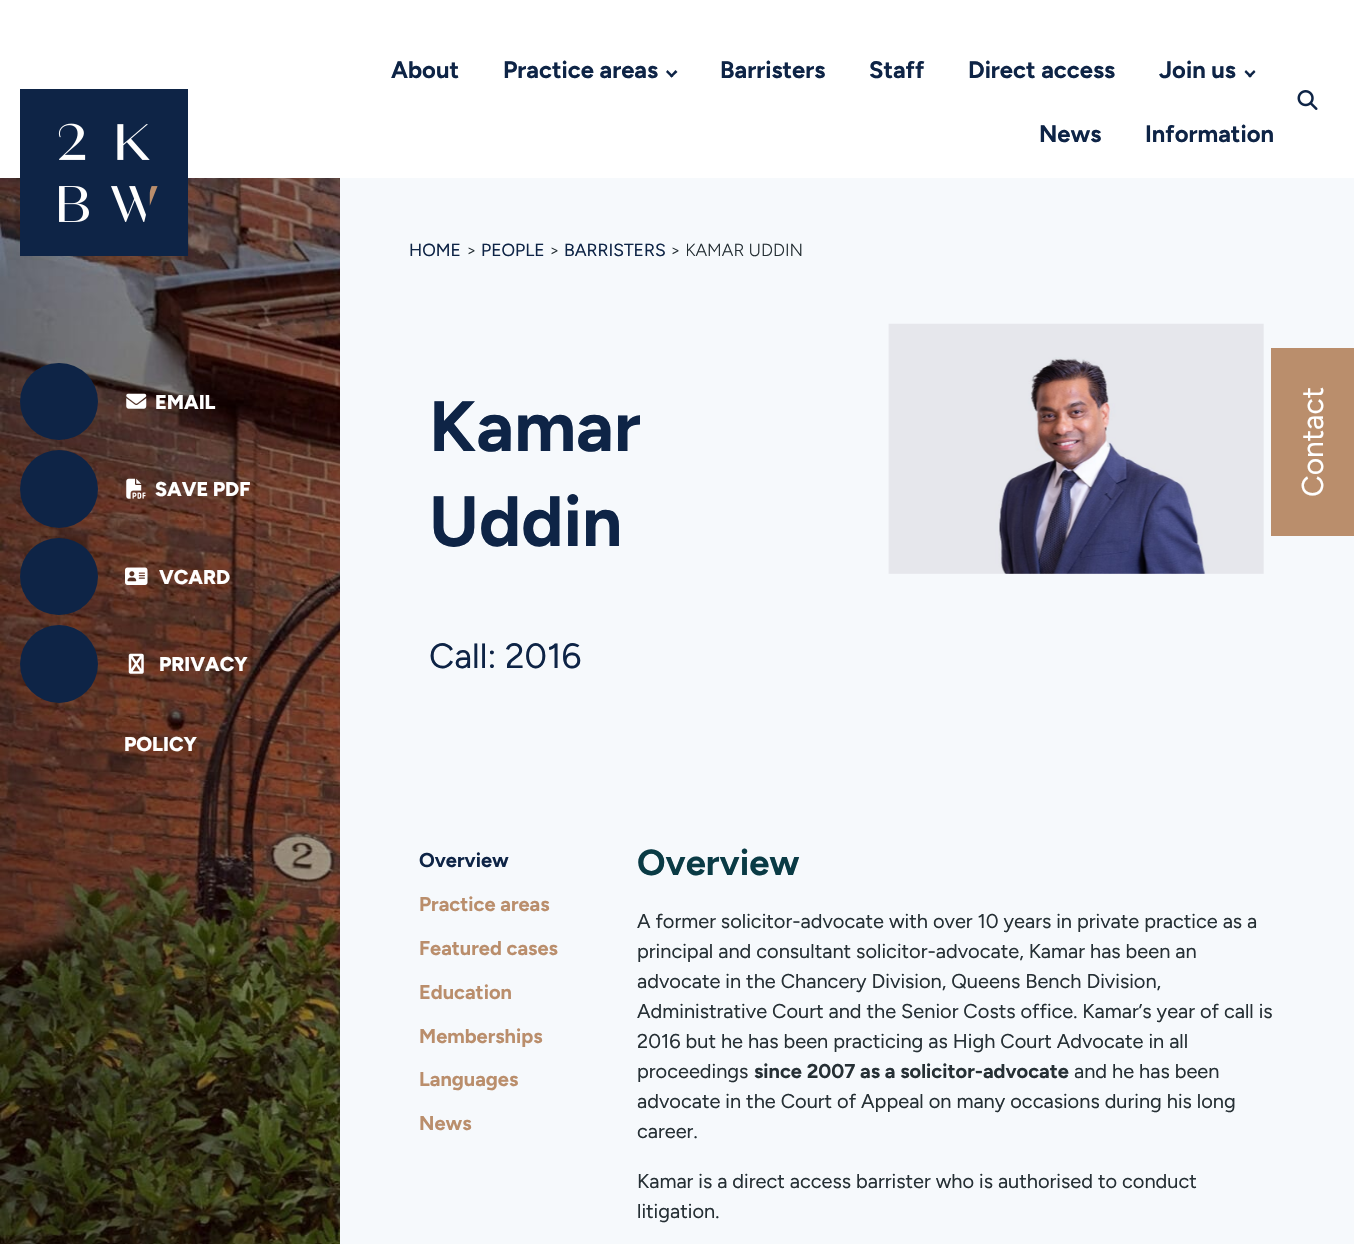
#include "include/core/SkBlurTypes.h"
#include "include/core/SkCanvas.h"
#include "include/core/SkData.h"
#include "include/core/SkFont.h"
#include "include/core/SkFontMgr.h"
#include "include/core/SkImage.h"
#include "include/core/SkMaskFilter.h"
#include "include/core/SkPaint.h"
#include "include/core/SkPathBuilder.h"
#include "include/core/SkTextBlob.h"
#include "include/effects/SkDashPathEffect.h"
#include "include/effects/SkGradientShader.h"
#include "include/utils/SkParsePath.h"

extern sk_sp<SkFontMgr> fontMgr;

static SkFont font(const char* family, int weight, float size, bool italic = false) {
    SkFontStyle style(weight, SkFontStyle::kNormal_Width,
        italic ? SkFontStyle::kItalic_Slant : SkFontStyle::kUpright_Slant);
    SkFont result(fontMgr->matchFamilyStyle(family, style), size);
    result.setSubpixel(true);
    return result;
}

static void drawLabel(SkCanvas* canvas, const char* s, float x, float y, const SkFont& font, SkColor color) {
    SkPaint ink(SkColor4f::FromColor(color));
    ink.setAntiAlias(true);
    canvas->drawString(s, x, y, font, ink);
}

static void fillRect(SkCanvas* canvas, float x, float y, float w, float h, SkColor color) {
    SkPaint ink(SkColor4f::FromColor(color));
    ink.setAntiAlias(true);
    canvas->drawRect(SkRect::MakeXYWH(x, y, w, h), ink);
}

static void fillRRect(SkCanvas* canvas, float x, float y, float w, float h, float radius, SkColor color) {
    SkPaint ink(SkColor4f::FromColor(color));
    ink.setAntiAlias(true);
    canvas->drawRoundRect(SkRect::MakeXYWH(x, y, w, h), radius, radius, ink);
}

static void drawPhoto(SkCanvas* canvas, const char* path, float x, float y, float w, float h) {
    auto image = SkImages::DeferredFromEncodedData(SkData::MakeFromFileName(path));
    canvas->drawImageRect(image, SkRect::MakeXYWH(x, y, w, h), SkSamplingOptions());
}

static SkPath parsePath(const char* data, bool evenOdd = false) {
    SkPath result = *SkParsePath::FromSVGString(data);
    if (evenOdd) result.setFillType(SkPathFillType::kEvenOdd);
    return result;
}

void draw(SkCanvas* canvas) {
    SkPaint paint;
    paint.setAntiAlias(true);
    canvas->clear(0xFFFFFFFF);
    drawPhoto(canvas, "assets/img1.png", 0, 178, 340, 1066);
    drawPhoto(canvas, "assets/img2.png", 20, 89, 168, 167);
    SkFont font1 = font("Figtree", 700, 23.75f);
    drawLabel(canvas, "About", 391, 78, font1, 0xFF0E2446);
    drawLabel(canvas, "Practice areas", 503, 78, font1, 0xFF0E2446);
    paint.setColor(0xFF0E2446);
    canvas->drawPath(parsePath("M675.5 70L677.5 72L671.5 77.5L670 76Z"), paint);
    canvas->drawPath(parsePath("M667.5 70L673.5 76L671.5 77.5L666 72Z"), paint);
    drawLabel(canvas, "Barristers", 720, 78, font1, 0xFF0E2446);
    drawLabel(canvas, "Staff", 869, 78, font1, 0xFF0E2446);
    drawLabel(canvas, "Direct access", 968, 78, font1, 0xFF0E2446);
    drawLabel(canvas, "Join us", 1159, 78, font1, 0xFF0E2446);
    canvas->drawPath(parsePath("M1254 70L1255.5 72L1250 77.5L1248 76Z"), paint);
    canvas->drawPath(parsePath("M1246 70L1252 76L1250 77.5L1244.5 72Z"), paint);
    drawLabel(canvas, "News", 1039, 142, font1, 0xFF0E2446);
    drawLabel(canvas, "Information", 1145, 142, font1, 0xFF0E2446);
    drawPhoto(canvas, "assets/img3.png", 1297, 90, 21, 20);
    fillRRect(canvas, 20, 363, 78, 77, 38.5f, 0xFF0E2446);
    drawPhoto(canvas, "assets/img4.png", 126, 393, 21, 16);
    SkFont font2 = font("Figtree", 800, 20);
    drawLabel(canvas, "EMAIL", 155, 409, font2, 0xFFFFFFFF);
    canvas->drawCircle(59, 489, 39, paint);
    drawPhoto(canvas, "assets/img5.png", 126, 478, 20, 21);
    drawLabel(canvas, "SAVE PDF", 155, 496, font2, 0xFFFFFFFF);
    fillRRect(canvas, 20, 538, 78, 77, 38.5f, 0xFF0E2446);
    drawPhoto(canvas, "assets/img6.png", 125, 567, 23, 18);
    drawLabel(canvas, "VCARD", 159, 584, font2, 0xFFFFFFFF);
    canvas->drawCircle(59, 664, 39, paint);
    drawPhoto(canvas, "assets/img7.png", 128, 653, 16, 21);
    drawLabel(canvas, "PRIVACY", 159, 671, font2, 0xFFFFFFFF);
    drawLabel(canvas, "POLICY", 124, 751, font2, 0xFFFFFFFF);
    fillRect(canvas, 340, 178, 1014, 1066, 0xFFF6F9FC);
    SkFont font3 = font("Figtree", 400, 17.5f);
    drawLabel(canvas, "HOME", 409, 256, font3, 0xFF0E2446);
    SkFont font4 = font("Figtree", 300, 17.5f);
    drawLabel(canvas, ">", 466, 256, font4, 0xFF263035);
    drawLabel(canvas, "PEOPLE", 481, 256, font3, 0xFF0E2446);
    drawLabel(canvas, ">", 549, 256, font4, 0xFF263035);
    drawLabel(canvas, "BARRISTERS", 564, 256, font3, 0xFF0E2446);
    drawLabel(canvas, "> KAMAR UDDIN", 670, 256, font4, 0xFF263035);
    SkFont font5 = font("Figtree", 700, 71);
    drawLabel(canvas, "Kamar", 429, 451, font5, 0xFF0E2446);
    drawLabel(canvas, "Uddin", 429, 546, font5, 0xFF0E2446);
    SkFont font6 = font("Figtree", 400, 35);
    drawLabel(canvas, "Call: 2016", 429, 668, font6, 0xFF0E2446);
    drawPhoto(canvas, "assets/img8.png", 888, 323, 376, 251);
    SkFont font7 = font("Figtree", 700, 20);
    drawLabel(canvas, "Overview", 419, 867, font7, 0xFF0E2446);
    drawLabel(canvas, "Practice areas", 419, 911, font7, 0xFFBA8E6C);
    drawLabel(canvas, "Featured cases", 419, 955, font7, 0xFFBA8E6C);
    drawLabel(canvas, "Education", 419, 999, font7, 0xFFBA8E6C);
    drawLabel(canvas, "Memberships", 419, 1043, font7, 0xFFBA8E6C);
    drawLabel(canvas, "Languages", 419, 1086, font7, 0xFFBA8E6C);
    drawLabel(canvas, "News", 419, 1130, font7, 0xFFBA8E6C);
    SkFont font8 = font("Figtree", 700, 36.25f);
    drawLabel(canvas, "Overview", 637, 875, font8, 0xFF0A3B45);
    SkFont font9 = font("Figtree", 400, 20);
    drawLabel(canvas, "A former solicitor-advocate with over 10 years in private practice as a", 637, 928, font9, 0xFF263035);
    drawLabel(canvas, "principal and consultant solicitor-advocate, Kamar has been an", 637, 958, font9, 0xFF263035);
    drawLabel(canvas, "advocate in the Chancery Division, Queens Bench Division,", 637, 988, font9, 0xFF263035);
    drawLabel(canvas, "Administrative Court and the Senior Costs office. Kamar’s year of call is", 637, 1018, font9, 0xFF263035);
    drawLabel(canvas, "2016 but he has been practicing as High Court Advocate in all", 637, 1048, font9, 0xFF263035);
    drawLabel(canvas, "proceedings", 637, 1078, font9, 0xFF263035);
    drawLabel(canvas, "since 2007 as a solicitor-advocate", 754, 1078, font7, 0xFF263035);
    drawLabel(canvas, "and he has been", 1074, 1078, font9, 0xFF263035);
    drawLabel(canvas, "advocate in the Court of Appeal on many occasions during his long", 637, 1108, font9, 0xFF263035);
    drawLabel(canvas, "career.", 637, 1138, font9, 0xFF263035);
    drawLabel(canvas, "Kamar is a direct access barrister who is authorised to conduct", 637, 1188, font9, 0xFF263035);
    drawLabel(canvas, "litigation.", 637, 1218, font9, 0xFF263035);
    fillRect(canvas, 1271, 348, 83, 188, 0xFFBA8E6C);
    SkFont font10 = font("Figtree", 400, 30);
    canvas->save();
    canvas->rotate(-90, 1323, 497);
    drawLabel(canvas, "Contact", 1323, 497, font10, 0xFFFFFFFF);
    canvas->restore();
}
